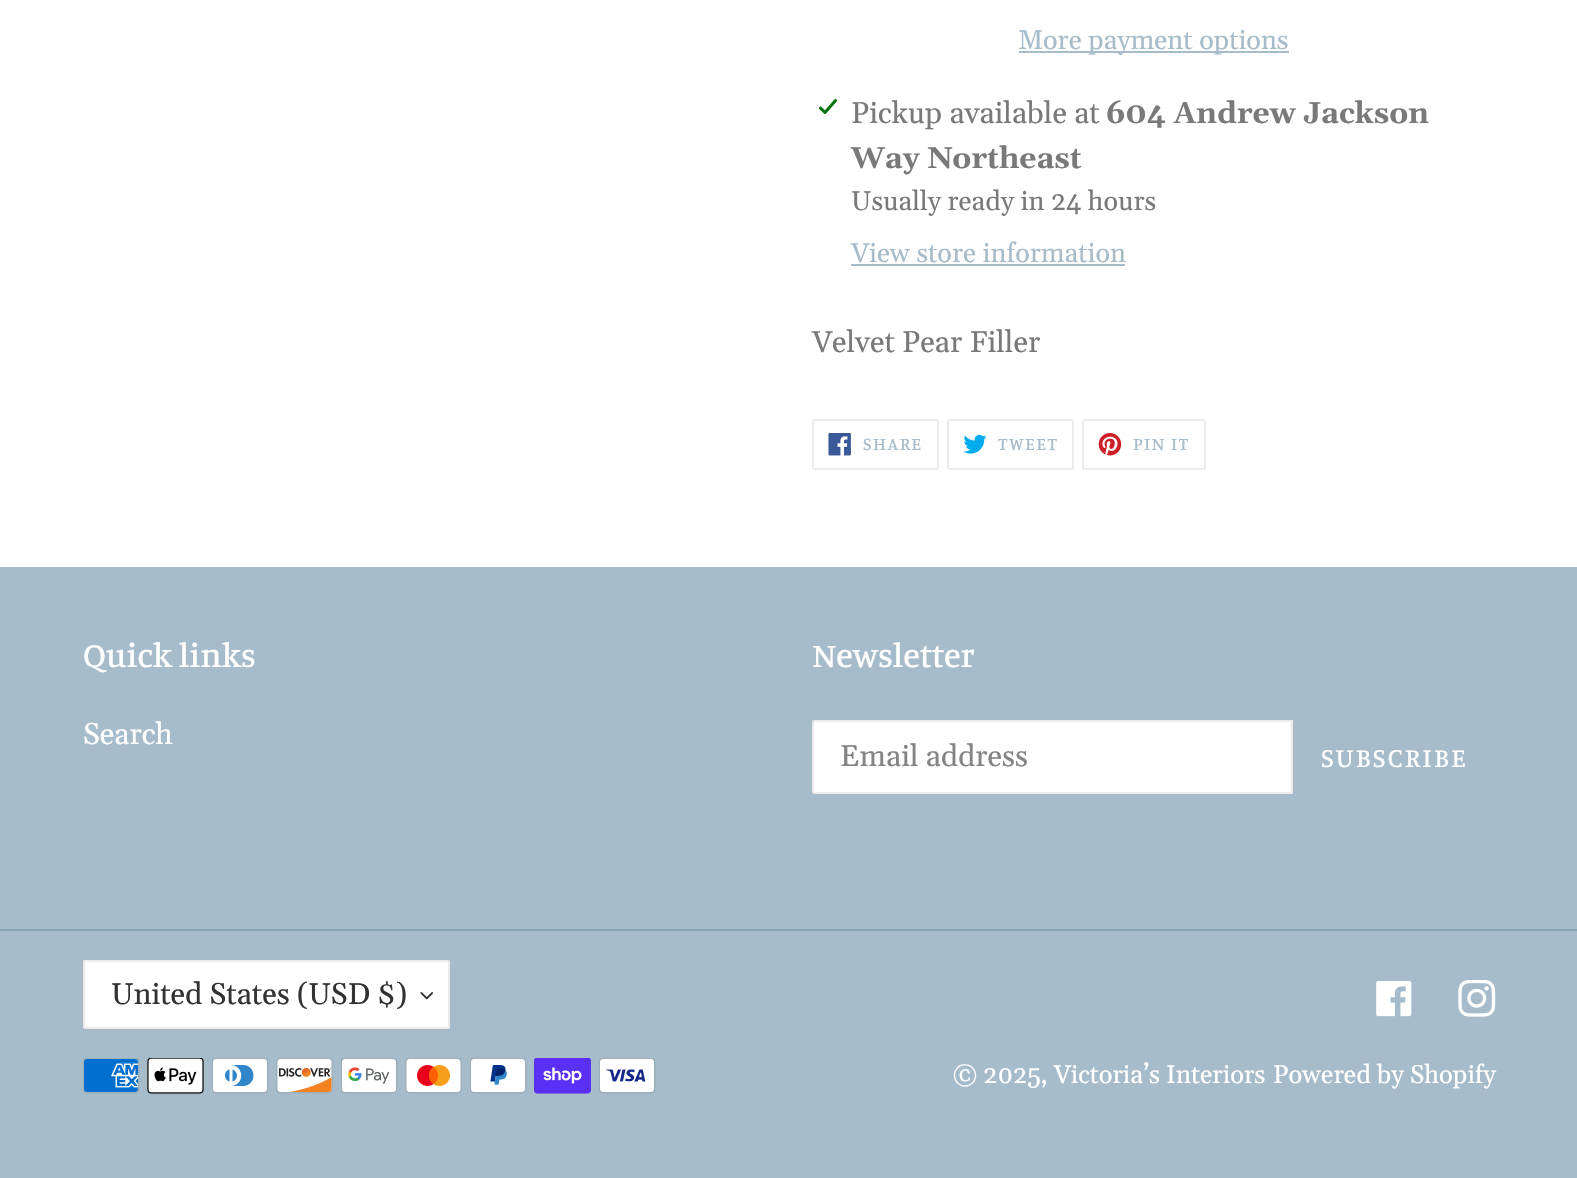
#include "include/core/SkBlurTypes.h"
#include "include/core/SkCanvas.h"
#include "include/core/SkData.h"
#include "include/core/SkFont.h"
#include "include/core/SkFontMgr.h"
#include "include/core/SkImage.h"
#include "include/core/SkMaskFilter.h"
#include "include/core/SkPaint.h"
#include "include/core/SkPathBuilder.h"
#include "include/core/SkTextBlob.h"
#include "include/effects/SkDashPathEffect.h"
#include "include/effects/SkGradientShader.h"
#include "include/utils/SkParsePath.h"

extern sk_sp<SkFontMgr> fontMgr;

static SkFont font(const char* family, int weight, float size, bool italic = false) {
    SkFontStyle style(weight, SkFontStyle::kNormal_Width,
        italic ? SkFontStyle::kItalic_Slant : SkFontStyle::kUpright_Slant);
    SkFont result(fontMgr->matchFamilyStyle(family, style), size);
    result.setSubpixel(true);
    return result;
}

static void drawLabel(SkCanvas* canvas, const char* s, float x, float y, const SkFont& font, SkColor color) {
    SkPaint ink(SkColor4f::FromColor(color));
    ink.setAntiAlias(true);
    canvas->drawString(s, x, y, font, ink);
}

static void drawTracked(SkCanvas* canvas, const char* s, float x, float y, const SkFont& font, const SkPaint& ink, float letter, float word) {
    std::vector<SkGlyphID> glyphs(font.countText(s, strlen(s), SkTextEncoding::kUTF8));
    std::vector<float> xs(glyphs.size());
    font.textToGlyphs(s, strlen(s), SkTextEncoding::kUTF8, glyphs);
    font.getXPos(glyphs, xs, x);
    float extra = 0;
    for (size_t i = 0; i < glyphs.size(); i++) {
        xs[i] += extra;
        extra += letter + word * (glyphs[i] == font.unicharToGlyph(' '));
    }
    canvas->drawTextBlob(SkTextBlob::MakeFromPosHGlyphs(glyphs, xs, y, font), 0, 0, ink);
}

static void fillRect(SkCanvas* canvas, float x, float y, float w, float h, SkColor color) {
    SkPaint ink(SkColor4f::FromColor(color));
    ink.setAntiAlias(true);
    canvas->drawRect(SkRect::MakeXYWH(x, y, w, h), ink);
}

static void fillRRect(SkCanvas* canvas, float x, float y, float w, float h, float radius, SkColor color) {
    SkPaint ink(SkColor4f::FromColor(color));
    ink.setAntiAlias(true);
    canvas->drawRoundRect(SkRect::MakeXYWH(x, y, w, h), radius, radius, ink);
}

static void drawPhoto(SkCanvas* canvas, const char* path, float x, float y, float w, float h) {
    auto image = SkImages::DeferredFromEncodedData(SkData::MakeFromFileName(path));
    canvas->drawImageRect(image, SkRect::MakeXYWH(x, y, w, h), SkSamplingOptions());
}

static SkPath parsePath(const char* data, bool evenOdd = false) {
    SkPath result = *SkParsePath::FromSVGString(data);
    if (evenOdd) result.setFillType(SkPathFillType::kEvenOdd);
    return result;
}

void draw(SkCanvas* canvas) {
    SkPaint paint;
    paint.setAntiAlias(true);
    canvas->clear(0xFFFFFFFF);
    fillRect(canvas, 1019, 51, 270, 2, 0xFFA7BCCA);
    SkFont font1 = font("Gelasio", 400, 27);
    drawLabel(canvas, "More payment options", 1018, 49, font1, 0xFFA7BCCA);
    drawPhoto(canvas, "assets/img1.png", 819, 99, 18, 15);
    SkFont font2 = font("Gelasio", 400, 30);
    drawLabel(canvas, "Pickup available at", 851, 123, font2, 0xFF797979);
    SkFont font3 = font("Gelasio", 700, 30);
    drawLabel(canvas, "604 Andrew Jackson", 1106, 123, font3, 0xFF797979);
    drawLabel(canvas, "Way Northeast", 851, 168, font3, 0xFF797979);
    drawLabel(canvas, "Usually ready in 24 hours", 851, 210, font1, 0xFF797979);
    drawLabel(canvas, "View store information", 851, 262, font1, 0xFFA7BCCA);
    fillRect(canvas, 851, 264, 274, 2, 0xFFA7BCCA);
    drawLabel(canvas, "Velvet Pear Filler", 812, 352, font2, 0xFF797979);
    paint.setStroke(true);
    paint.setStrokeWidth(2);
    paint.setColor(0xFFEBEBEB);
    canvas->drawRoundRect(SkRect::MakeXYWH(813, 420, 125, 49), 2, 2, paint);
    drawPhoto(canvas, "assets/img2.png", 828, 433, 23, 23);
    SkFont font4 = font("Manuale", 500, 18);
    paint.setStroke(false);
    paint.setColor(0xFFA7BCCA);
    drawTracked(canvas, "SHARE", 863, 450, font4, paint, 1.5f, 0);
    paint.setStroke(true);
    paint.setColor(0xFFEBEBEB);
    canvas->drawRoundRect(SkRect::MakeXYWH(948, 420, 125, 49), 2, 2, paint);
    drawPhoto(canvas, "assets/img3.png", 963, 434, 24, 20);
    paint.setStroke(false);
    paint.setColor(0xFFA7BCCA);
    drawTracked(canvas, "TWEET", 998, 450, font4, paint, 1.5f, 0);
    paint.setStroke(true);
    paint.setColor(0xFFEBEBEB);
    canvas->drawRoundRect(SkRect::MakeXYWH(1083, 420, 122, 49), 2, 2, paint);
    drawPhoto(canvas, "assets/img4.png", 1098, 433, 24, 23);
    paint.setStroke(false);
    paint.setColor(0xFFA7BCCA);
    drawTracked(canvas, "PIN IT", 1133, 450, font4, paint, 1.5f, 0);
    fillRect(canvas, 0, 567, 1577, 611, 0xFFA7BCCA);
    SkFont font5 = font("Manuale", 500, 34.5f);
    drawLabel(canvas, "Quick links", 83, 667, font5, 0xFFFFFFFF);
    drawLabel(canvas, "Search", 83, 744, font2, 0xFFFFFFFF);
    drawLabel(canvas, "Newsletter", 812, 667, font5, 0xFFFFFFFF);
    paint.setColor(0xFFFFFFFF);
    canvas->drawPath(parsePath("M815 721H1292V793H815C814 793 813 792 813 791V723C813 722 814 721 815 721Z"), paint);
    paint.setStroke(true);
    paint.setColor(0xFFEBEBEB);
    canvas->drawPath(parsePath("M815 721H1292V793H815C814 793 813 792 813 791V723C813 722 814 721 815 721Z"), paint);
    drawLabel(canvas, "Email address", 840, 766, font2, 0xFF858484);
    SkFont font6 = font("Manuale", 500, 27);
    paint.setStroke(false);
    paint.setColor(0xFFFFFFFF);
    drawTracked(canvas, "SUBSCRIBE", 1321, 767, font6, paint, 2.25f, 0);
    fillRect(canvas, 0, 929, 1577, 2, 0xFF87A4B7);
    fillRRect(canvas, 83, 960, 367, 69, 3, 0xFFFFFFFF);
    drawPhoto(canvas, "assets/img5.png", 420, 992, 13, 8);
    paint.setStroke(true);
    paint.setColor(0xFFEBEBEB);
    canvas->drawRoundRect(SkRect::MakeXYWH(84, 961, 365, 67), 2, 2, paint);
    drawLabel(canvas, "United States (USD $)", 111, 1004, font2, 0xFF333232);
    drawPhoto(canvas, "assets/img6.png", 1376, 981, 36, 36);
    drawPhoto(canvas, "assets/img7.png", 1458, 980, 38, 37);
    drawPhoto(canvas, "assets/img8.png", 83, 1058, 57, 36);
    drawPhoto(canvas, "assets/img9.png", 147, 1058, 57, 36);
    drawPhoto(canvas, "assets/img10.png", 212, 1058, 57, 36);
    drawPhoto(canvas, "assets/img11.png", 276, 1058, 57, 36);
    drawPhoto(canvas, "assets/img12.png", 341, 1058, 57, 36);
    drawPhoto(canvas, "assets/img13.png", 405, 1058, 57, 36);
    drawPhoto(canvas, "assets/img14.png", 470, 1058, 57, 36);
    drawPhoto(canvas, "assets/img15.png", 534, 1058, 57, 36);
    drawPhoto(canvas, "assets/img16.png", 599, 1058, 57, 36);
    SkFont font7 = font("Gelasio", 400, 25.5f);
    drawLabel(canvas, "© 2025, Victoria’s Interiors", 953, 1083, font7, 0xFFFFFFFF);
    drawLabel(canvas, "Powered by Shopify", 1273, 1083, font7, 0xFFFFFFFF);
}
